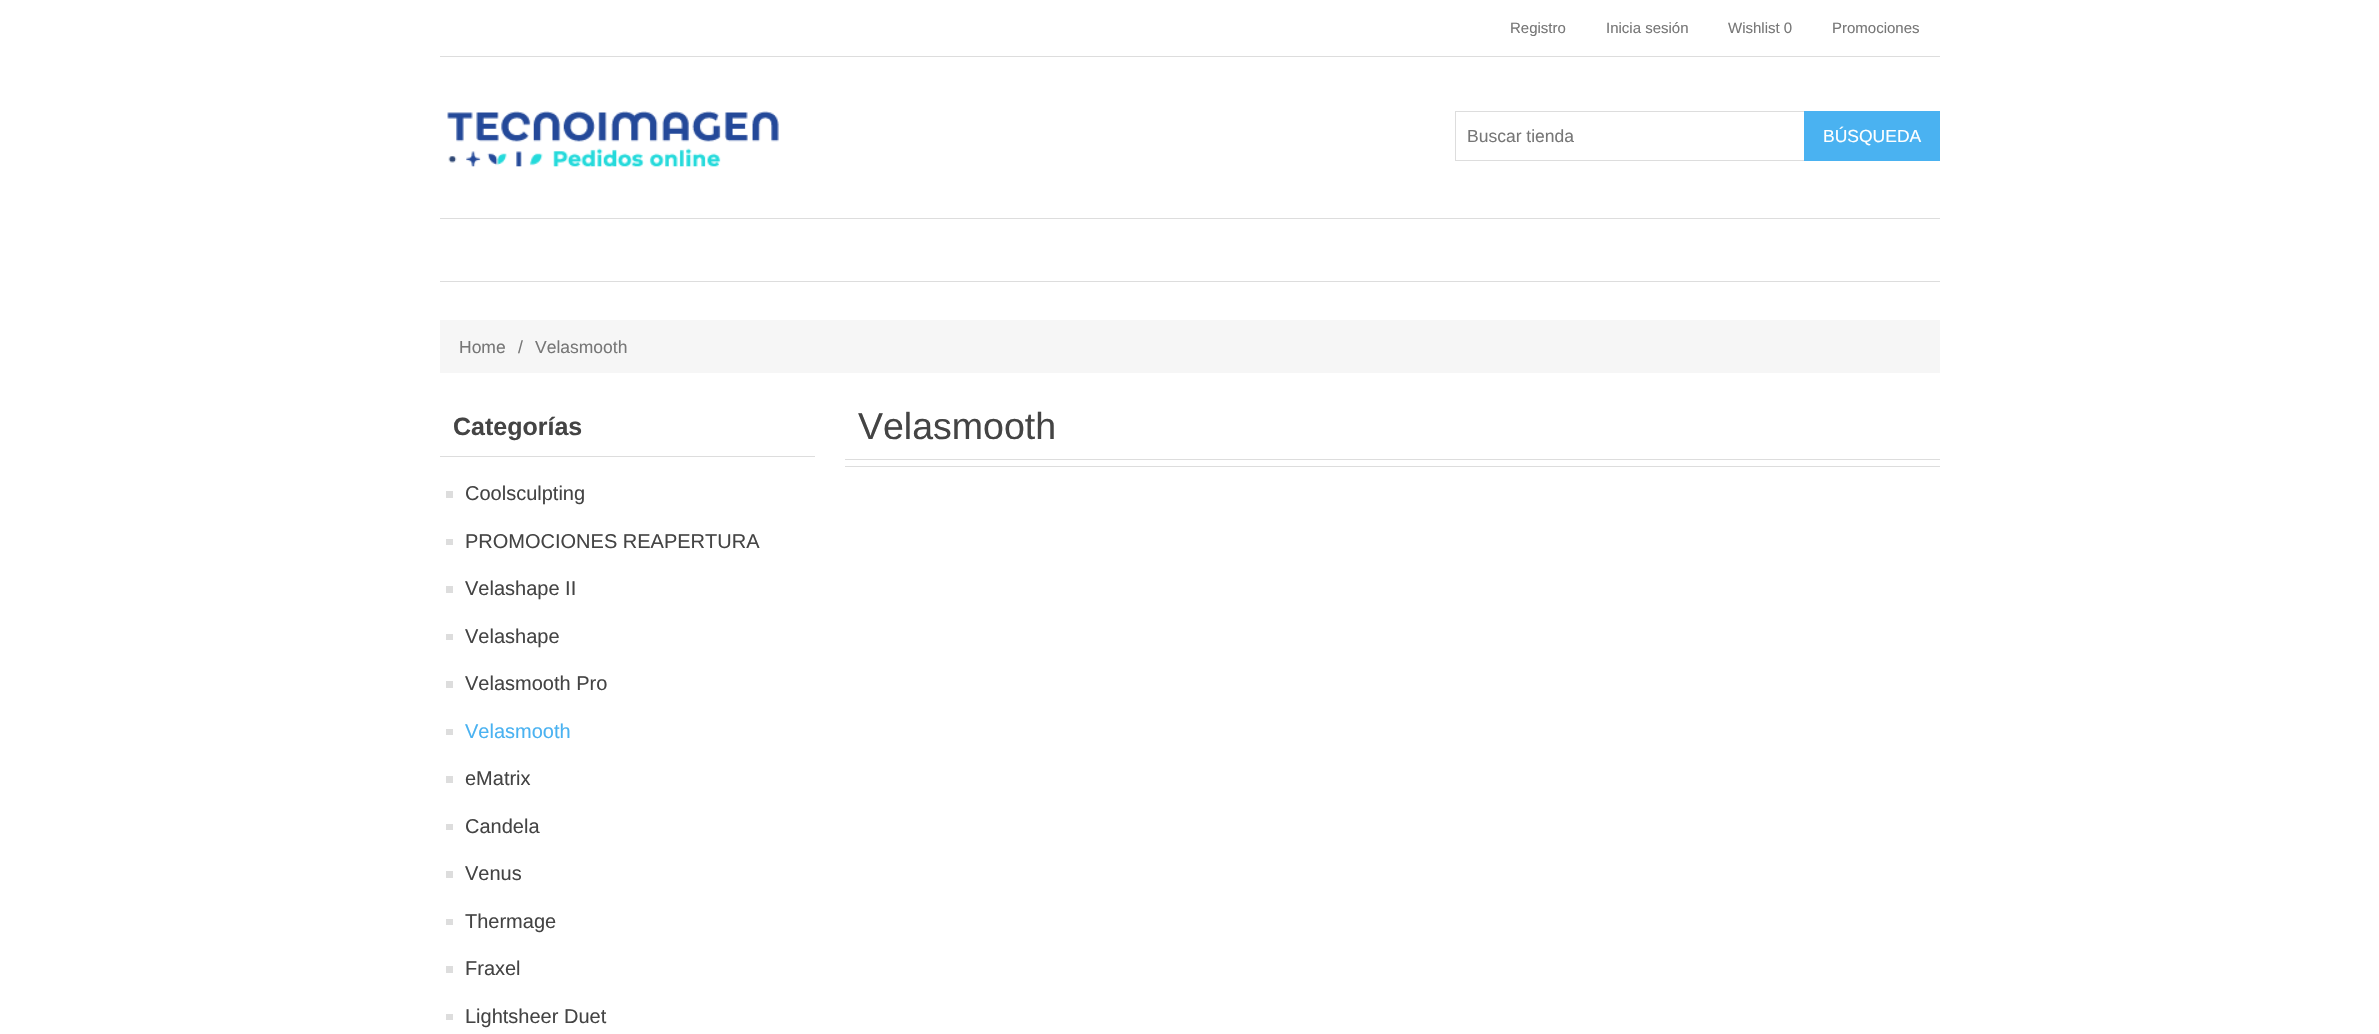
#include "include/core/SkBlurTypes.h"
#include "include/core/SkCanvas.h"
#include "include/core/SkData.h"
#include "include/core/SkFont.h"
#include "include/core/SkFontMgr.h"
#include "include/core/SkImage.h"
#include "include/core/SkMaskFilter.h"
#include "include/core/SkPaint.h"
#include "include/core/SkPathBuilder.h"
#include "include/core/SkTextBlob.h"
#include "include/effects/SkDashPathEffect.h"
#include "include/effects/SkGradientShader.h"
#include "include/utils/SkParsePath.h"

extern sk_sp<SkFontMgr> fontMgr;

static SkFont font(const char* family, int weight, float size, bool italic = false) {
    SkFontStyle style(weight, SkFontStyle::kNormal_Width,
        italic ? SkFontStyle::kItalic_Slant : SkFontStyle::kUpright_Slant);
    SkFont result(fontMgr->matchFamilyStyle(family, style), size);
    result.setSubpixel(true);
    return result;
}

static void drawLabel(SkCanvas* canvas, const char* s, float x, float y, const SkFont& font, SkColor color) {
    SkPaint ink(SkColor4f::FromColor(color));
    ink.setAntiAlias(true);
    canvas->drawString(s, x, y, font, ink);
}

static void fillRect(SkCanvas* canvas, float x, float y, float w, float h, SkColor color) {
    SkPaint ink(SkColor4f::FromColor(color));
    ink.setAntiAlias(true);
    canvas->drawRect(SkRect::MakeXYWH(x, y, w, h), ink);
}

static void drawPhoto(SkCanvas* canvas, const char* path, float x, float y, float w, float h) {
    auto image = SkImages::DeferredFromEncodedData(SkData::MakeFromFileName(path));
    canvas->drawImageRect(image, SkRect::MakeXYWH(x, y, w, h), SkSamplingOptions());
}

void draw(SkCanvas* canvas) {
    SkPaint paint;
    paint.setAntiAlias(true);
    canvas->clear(0xFFFFFFFF);
    fillRect(canvas, 440, 56, 1500, 1, 0xFFDDDDDD);
    SkFont font1 = font("Liberation Sans", 400, 15);
    drawLabel(canvas, "Registro", 1510, 33, font1, 0xFF777777);
    drawLabel(canvas, "Inicia sesión", 1606, 33, font1, 0xFF777777);
    drawLabel(canvas, "Wishlist 0", 1728, 33, font1, 0xFF777777);
    drawLabel(canvas, "Promociones", 1832, 33, font1, 0xFF777777);
    drawPhoto(canvas, "assets/img1.png", 447, 111, 332, 56);
    paint.setStroke(true);
    paint.setStrokeWidth(1);
    paint.setColor(0xFFDDDDDD);
    canvas->drawRect(SkRect::MakeXYWH(1455.5f, 111.5f, 349, 49), paint);
    SkFont font2 = font("Liberation Sans", 400, 17.5f);
    drawLabel(canvas, "Buscar tienda", 1467, 142, font2, 0xFF777777);
    fillRect(canvas, 1804, 111, 136, 50, 0xFF4AB2F1);
    drawLabel(canvas, "BÚSQUEDA", 1823, 142, font2, 0xFFFFFFFF);
    fillRect(canvas, 440, 218, 1500, 1, 0xFFDDDDDD);
    fillRect(canvas, 440, 281, 1500, 1, 0xFFDDDDDD);
    fillRect(canvas, 440, 320, 1500, 53, 0xFFF6F6F6);
    drawLabel(canvas, "Home", 459, 353, font2, 0xFF777777);
    drawLabel(canvas, "/", 518, 353, font2, 0xFF777777);
    drawLabel(canvas, "Velasmooth", 535, 353, font2, 0xFF777777);
    fillRect(canvas, 440, 456, 375, 1, 0xFFDDDDDD);
    SkFont font3 = font("Liberation Sans", 700, 25);
    drawLabel(canvas, "Categorías", 453, 435, font3, 0xFF444444);
    fillRect(canvas, 446, 491, 7, 7, 0xFFDDDDDD);
    SkFont font4 = font("Liberation Sans", 400, 20);
    drawLabel(canvas, "Coolsculpting", 465, 500, font4, 0xFF444444);
    fillRect(canvas, 446, 539, 7, 6, 0xFFDDDDDD);
    drawLabel(canvas, "PROMOCIONES REAPERTURA", 465, 548, font4, 0xFF444444);
    fillRect(canvas, 446, 586, 7, 7, 0xFFDDDDDD);
    drawLabel(canvas, "Velashape II", 465, 595, font4, 0xFF444444);
    fillRect(canvas, 446, 634, 7, 6, 0xFFDDDDDD);
    drawLabel(canvas, "Velashape", 465, 643, font4, 0xFF444444);
    fillRect(canvas, 446, 681, 7, 7, 0xFFDDDDDD);
    drawLabel(canvas, "Velasmooth Pro", 465, 690, font4, 0xFF444444);
    fillRect(canvas, 446, 729, 7, 6, 0xFFDDDDDD);
    drawLabel(canvas, "Velasmooth", 465, 738, font4, 0xFF4AB2F1);
    fillRect(canvas, 446, 776, 7, 7, 0xFFDDDDDD);
    drawLabel(canvas, "eMatrix", 465, 785, font4, 0xFF444444);
    fillRect(canvas, 446, 824, 7, 6, 0xFFDDDDDD);
    drawLabel(canvas, "Candela", 465, 833, font4, 0xFF444444);
    fillRect(canvas, 446, 871, 7, 7, 0xFFDDDDDD);
    drawLabel(canvas, "Venus", 465, 880, font4, 0xFF444444);
    fillRect(canvas, 446, 919, 7, 6, 0xFFDDDDDD);
    drawLabel(canvas, "Thermage", 465, 928, font4, 0xFF444444);
    fillRect(canvas, 446, 966, 7, 7, 0xFFDDDDDD);
    drawLabel(canvas, "Fraxel", 465, 975, font4, 0xFF444444);
    fillRect(canvas, 446, 1014, 7, 6, 0xFFDDDDDD);
    drawLabel(canvas, "Lightsheer Duet", 465, 1023, font4, 0xFF444444);
    fillRect(canvas, 845, 459, 1095, 1, 0xFFDDDDDD);
    SkFont font5 = font("Liberation Sans", 400, 37.5f);
    drawLabel(canvas, "Velasmooth", 858, 439, font5, 0xFF444444);
    fillRect(canvas, 845, 466, 1095, 1, 0xFFDDDDDD);
}
